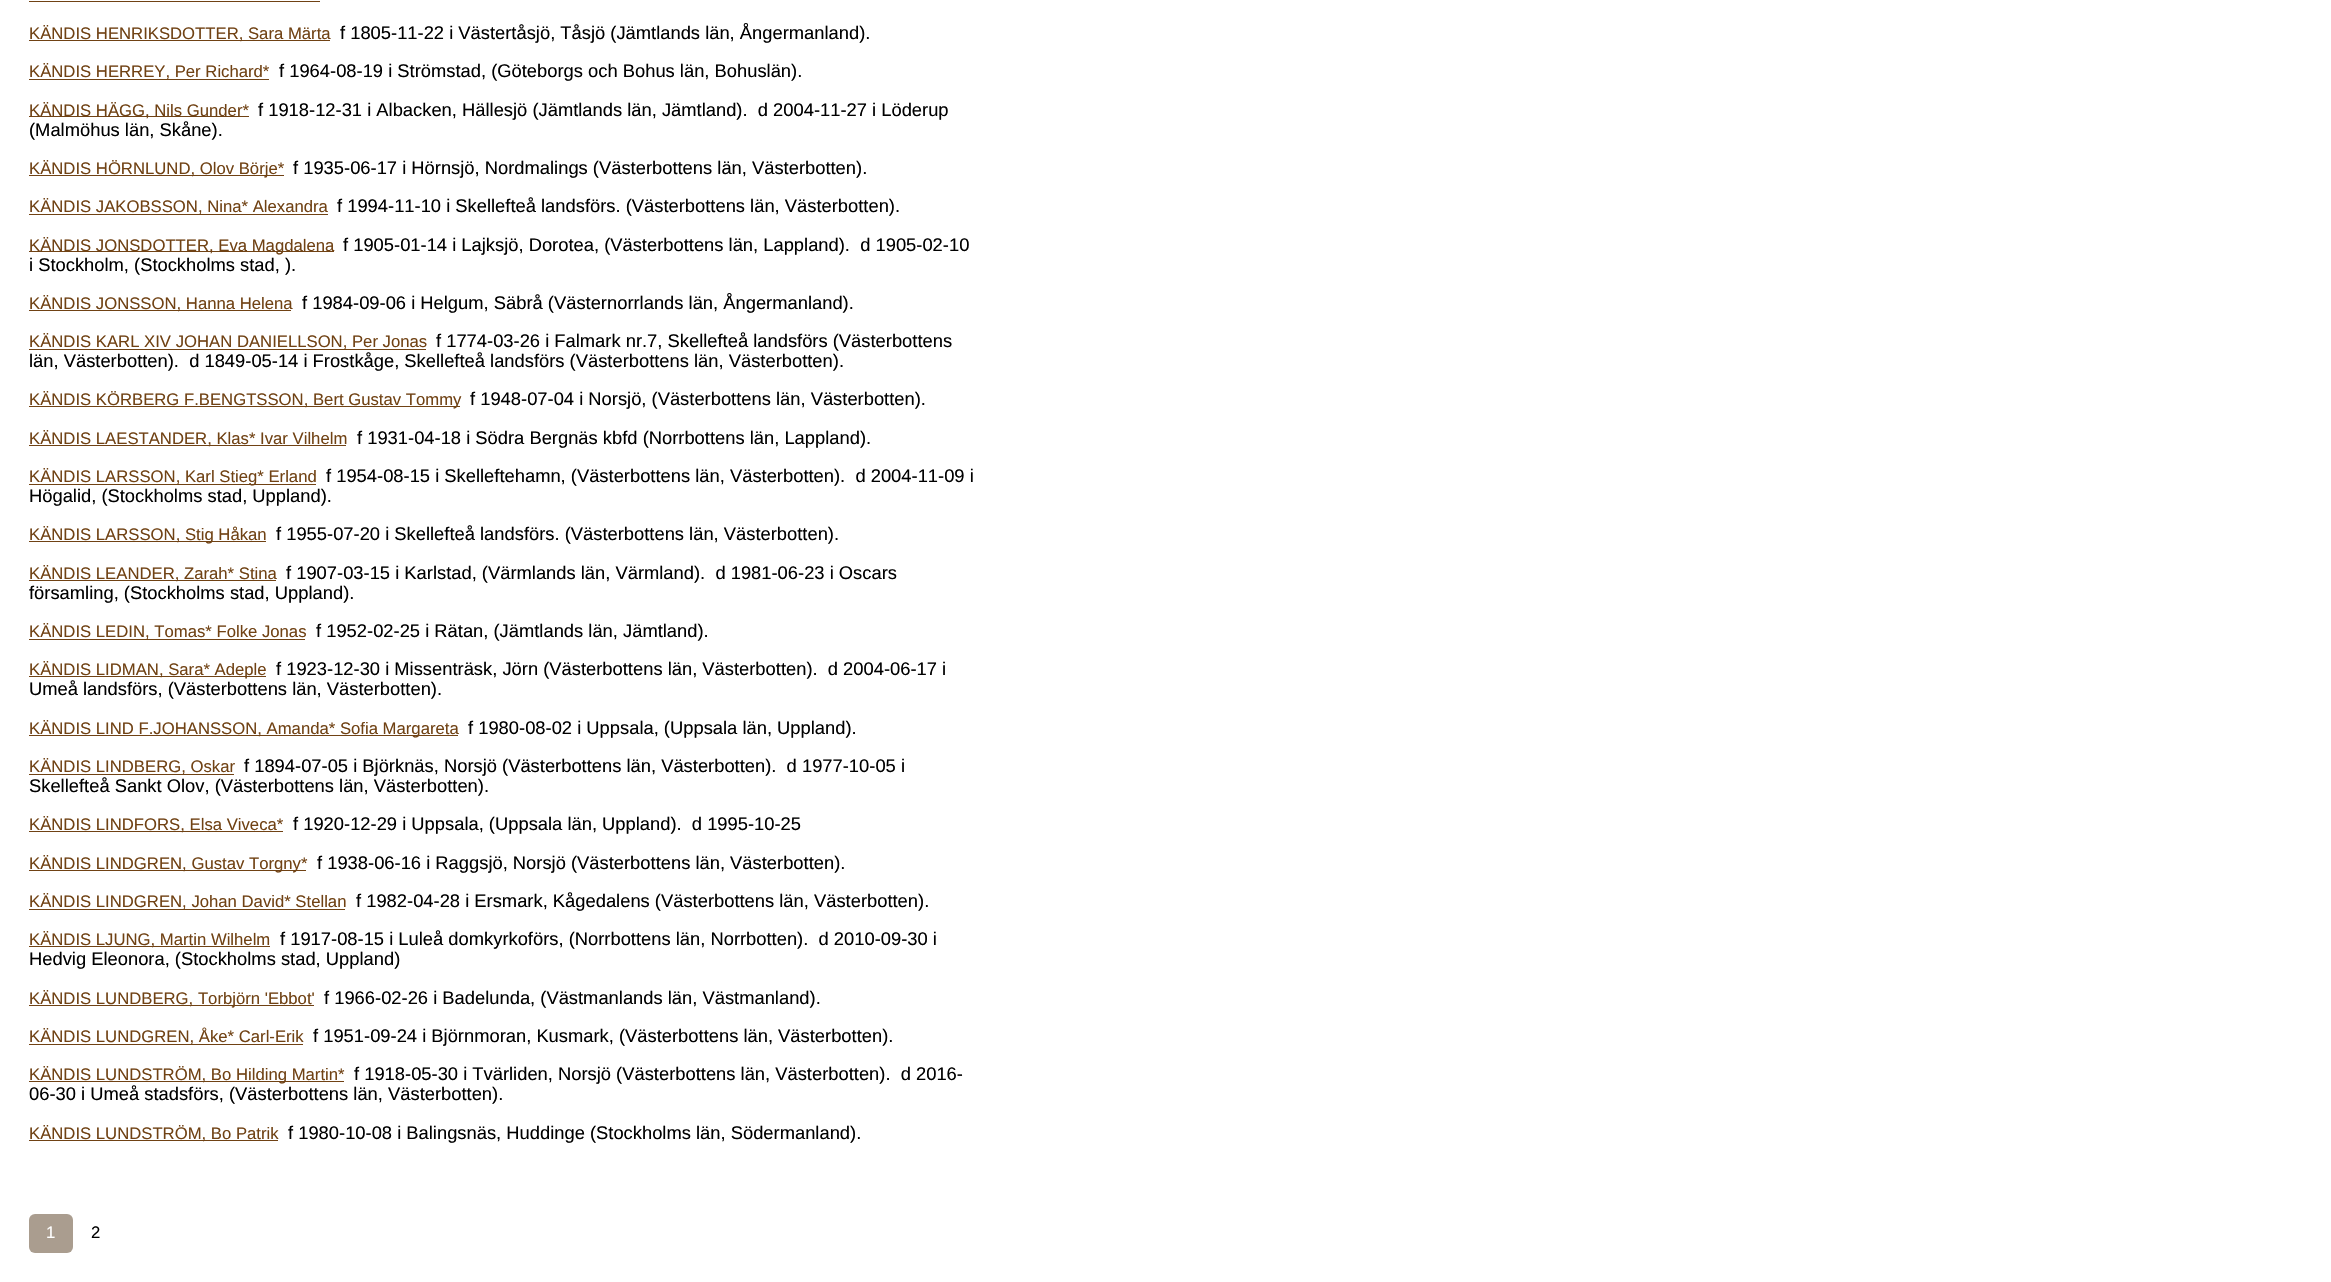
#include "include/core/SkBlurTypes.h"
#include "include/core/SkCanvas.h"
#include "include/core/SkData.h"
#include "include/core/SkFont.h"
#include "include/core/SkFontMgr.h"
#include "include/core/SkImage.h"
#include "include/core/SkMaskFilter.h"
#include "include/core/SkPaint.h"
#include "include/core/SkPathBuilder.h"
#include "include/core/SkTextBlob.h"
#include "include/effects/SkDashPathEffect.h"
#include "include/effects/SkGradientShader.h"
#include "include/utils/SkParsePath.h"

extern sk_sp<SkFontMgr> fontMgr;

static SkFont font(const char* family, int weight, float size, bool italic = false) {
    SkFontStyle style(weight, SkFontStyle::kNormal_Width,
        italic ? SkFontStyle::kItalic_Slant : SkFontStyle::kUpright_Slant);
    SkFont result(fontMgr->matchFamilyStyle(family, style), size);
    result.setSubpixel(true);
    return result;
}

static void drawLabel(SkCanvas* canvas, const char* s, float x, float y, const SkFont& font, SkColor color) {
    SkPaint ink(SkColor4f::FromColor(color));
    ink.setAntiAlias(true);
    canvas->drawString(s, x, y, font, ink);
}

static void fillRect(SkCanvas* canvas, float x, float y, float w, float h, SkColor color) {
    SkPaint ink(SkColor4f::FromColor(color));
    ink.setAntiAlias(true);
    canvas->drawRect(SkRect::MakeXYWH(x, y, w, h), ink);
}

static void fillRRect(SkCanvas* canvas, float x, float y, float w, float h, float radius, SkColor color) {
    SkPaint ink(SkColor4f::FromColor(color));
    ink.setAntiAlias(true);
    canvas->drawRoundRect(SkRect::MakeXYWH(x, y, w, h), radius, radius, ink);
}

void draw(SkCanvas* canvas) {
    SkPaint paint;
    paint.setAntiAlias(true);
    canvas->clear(0xFFFFFFFF);
    fillRect(canvas, 29, 1, 291, 1, 0xFF704214);
    fillRect(canvas, 29, 40, 301, 1, 0xFF704214);
    SkFont font1 = font("Liberation Sans", 400, 16.7f);
    drawLabel(canvas, "KÄNDIS HENRIKSDOTTER, Sara Märta", 29, 39, font1, 0xFF704214);
    SkFont font2 = font("Liberation Sans", 400, 18.35f);
    drawLabel(canvas, "f 1805-11-22 i Västertåsjö, Tåsjö (Jämtlands län, Ångermanland).", 340, 39, font2, 0xFF000000);
    fillRect(canvas, 29, 79, 240, 1, 0xFF704214);
    drawLabel(canvas, "KÄNDIS HERREY, Per Richard*", 29, 77, font1, 0xFF704214);
    drawLabel(canvas, "f 1964-08-19 i Strömstad, (Göteborgs och Bohus län, Bohuslän).", 279, 77, font2, 0xFF000000);
    fillRect(canvas, 29, 116, 220, 1, 0xFF704214);
    drawLabel(canvas, "KÄNDIS HÄGG, Nils Gunder*", 29, 116, font1, 0xFF704214);
    drawLabel(canvas, "f 1918-12-31 i Albacken, Hällesjö (Jämtlands län, Jämtland).  d 2004-11-27 i Löderup", 258, 116, font2, 0xFF000000);
    drawLabel(canvas, "(Malmöhus län, Skåne).", 29, 136, font2, 0xFF000000);
    fillRect(canvas, 29, 175, 255, 1, 0xFF704214);
    drawLabel(canvas, "KÄNDIS HÖRNLUND, Olov Börje*", 29, 174, font1, 0xFF704214);
    drawLabel(canvas, "f 1935-06-17 i Hörnsjö, Nordmalings (Västerbottens län, Västerbotten).", 293, 174, font2, 0xFF000000);
    fillRect(canvas, 29, 214, 299, 1, 0xFF704214);
    drawLabel(canvas, "KÄNDIS JAKOBSSON, Nina* Alexandra", 29, 212, font1, 0xFF704214);
    drawLabel(canvas, "f 1994-11-10 i Skellefteå landsförs. (Västerbottens län, Västerbotten).", 337, 212, font2, 0xFF000000);
    fillRect(canvas, 29, 251, 305, 1, 0xFF704214);
    drawLabel(canvas, "KÄNDIS JONSDOTTER, Eva Magdalena", 29, 251, font1, 0xFF704214);
    drawLabel(canvas, "f 1905-01-14 i Lajksjö, Dorotea, (Västerbottens län, Lappland).  d 1905-02-10", 343, 251, font2, 0xFF000000);
    drawLabel(canvas, "i Stockholm, (Stockholms stad, ).", 29, 271, font2, 0xFF000000);
    fillRect(canvas, 29, 310, 262, 1, 0xFF704214);
    drawLabel(canvas, "KÄNDIS JONSSON, Hanna Helena", 29, 309, font1, 0xFF704214);
    drawLabel(canvas, "f 1984-09-06 i Helgum, Säbrå (Västernorrlands län, Ångermanland).", 302, 309, font2, 0xFF000000);
    fillRect(canvas, 29, 349, 397, 1, 0xFF704214);
    drawLabel(canvas, "KÄNDIS KARL XIV JOHAN DANIELLSON, Per Jonas", 29, 347, font1, 0xFF704214);
    drawLabel(canvas, "f 1774-03-26 i Falmark nr.7, Skellefteå landsförs (Västerbottens", 436, 347, font2, 0xFF000000);
    drawLabel(canvas, "län, Västerbotten).  d 1849-05-14 i Frostkåge, Skellefteå landsförs (Västerbottens län, Västerbotten).", 29, 367, font2, 0xFF000000);
    fillRect(canvas, 29, 406, 431, 1, 0xFF704214);
    drawLabel(canvas, "KÄNDIS KÖRBERG F.BENGTSSON, Bert Gustav Tommy", 29, 405, font1, 0xFF704214);
    drawLabel(canvas, "f 1948-07-04 i Norsjö, (Västerbottens län, Västerbotten).", 470, 405, font2, 0xFF000000);
    fillRect(canvas, 29, 445, 317, 1, 0xFF704214);
    drawLabel(canvas, "KÄNDIS LAESTANDER, Klas* Ivar Vilhelm", 29, 444, font1, 0xFF704214);
    drawLabel(canvas, "f 1931-04-18 i Södra Bergnäs kbfd (Norrbottens län, Lappland).", 357, 444, font2, 0xFF000000);
    fillRect(canvas, 29, 484, 287, 1, 0xFF704214);
    drawLabel(canvas, "KÄNDIS LARSSON, Karl Stieg* Erland", 29, 482, font1, 0xFF704214);
    drawLabel(canvas, "f 1954-08-15 i Skelleftehamn, (Västerbottens län, Västerbotten).  d 2004-11-09 i", 326, 482, font2, 0xFF000000);
    drawLabel(canvas, "Högalid, (Stockholms stad, Uppland).", 29, 502, font2, 0xFF000000);
    fillRect(canvas, 29, 541, 237, 1, 0xFF704214);
    drawLabel(canvas, "KÄNDIS LARSSON, Stig Håkan", 29, 540, font1, 0xFF704214);
    drawLabel(canvas, "f 1955-07-20 i Skellefteå landsförs. (Västerbottens län, Västerbotten).", 276, 540, font2, 0xFF000000);
    fillRect(canvas, 29, 580, 247, 1, 0xFF704214);
    drawLabel(canvas, "KÄNDIS LEANDER, Zarah* Stina", 29, 579, font1, 0xFF704214);
    drawLabel(canvas, "f 1907-03-15 i Karlstad, (Värmlands län, Värmland).  d 1981-06-23 i Oscars", 286, 579, font2, 0xFF000000);
    drawLabel(canvas, "församling, (Stockholms stad, Uppland).", 29, 599, font2, 0xFF000000);
    fillRect(canvas, 29, 639, 276, 1, 0xFF704214);
    drawLabel(canvas, "KÄNDIS LEDIN, Tomas* Folke Jonas", 29, 637, font1, 0xFF704214);
    drawLabel(canvas, "f 1952-02-25 i Rätan, (Jämtlands län, Jämtland).", 316, 637, font2, 0xFF000000);
    fillRect(canvas, 29, 676, 237, 1, 0xFF704214);
    drawLabel(canvas, "KÄNDIS LIDMAN, Sara* Adeple", 29, 675, font1, 0xFF704214);
    drawLabel(canvas, "f 1923-12-30 i Missenträsk, Jörn (Västerbottens län, Västerbotten).  d 2004-06-17 i", 276, 675, font2, 0xFF000000);
    drawLabel(canvas, "Umeå landsförs, (Västerbottens län, Västerbotten).", 29, 695, font2, 0xFF000000);
    fillRect(canvas, 29, 735, 429, 1, 0xFF704214);
    drawLabel(canvas, "KÄNDIS LIND F.JOHANSSON, Amanda* Sofia Margareta", 29, 734, font1, 0xFF704214);
    drawLabel(canvas, "f 1980-08-02 i Uppsala, (Uppsala län, Uppland).", 468, 734, font2, 0xFF000000);
    fillRect(canvas, 29, 774, 205, 1, 0xFF704214);
    drawLabel(canvas, "KÄNDIS LINDBERG, Oskar", 29, 772, font1, 0xFF704214);
    drawLabel(canvas, "f 1894-07-05 i Björknäs, Norsjö (Västerbottens län, Västerbotten).  d 1977-10-05 i", 244, 772, font2, 0xFF000000);
    drawLabel(canvas, "Skellefteå Sankt Olov, (Västerbottens län, Västerbotten).", 29, 792, font2, 0xFF000000);
    fillRect(canvas, 29, 831, 254, 1, 0xFF704214);
    drawLabel(canvas, "KÄNDIS LINDFORS, Elsa Viveca*", 29, 830, font1, 0xFF704214);
    drawLabel(canvas, "f 1920-12-29 i Uppsala, (Uppsala län, Uppland).  d 1995-10-25", 293, 830, font2, 0xFF000000);
    fillRect(canvas, 29, 870, 277, 1, 0xFF704214);
    drawLabel(canvas, "KÄNDIS LINDGREN, Gustav Torgny*", 29, 869, font1, 0xFF704214);
    drawLabel(canvas, "f 1938-06-16 i Raggsjö, Norsjö (Västerbottens län, Västerbotten).", 317, 869, font2, 0xFF000000);
    fillRect(canvas, 29, 909, 316, 1, 0xFF704214);
    drawLabel(canvas, "KÄNDIS LINDGREN, Johan David* Stellan", 29, 907, font1, 0xFF704214);
    drawLabel(canvas, "f 1982-04-28 i Ersmark, Kågedalens (Västerbottens län, Västerbotten).", 356, 907, font2, 0xFF000000);
    fillRect(canvas, 29, 946, 241, 1, 0xFF704214);
    drawLabel(canvas, "KÄNDIS LJUNG, Martin Wilhelm", 29, 945, font1, 0xFF704214);
    drawLabel(canvas, "f 1917-08-15 i Luleå domkyrkoförs, (Norrbottens län, Norrbotten).  d 2010-09-30 i", 280, 945, font2, 0xFF000000);
    drawLabel(canvas, "Hedvig Eleonora, (Stockholms stad, Uppland)", 29, 965, font2, 0xFF000000);
    fillRect(canvas, 29, 1005, 285, 1, 0xFF704214);
    drawLabel(canvas, "KÄNDIS LUNDBERG, Torbjörn 'Ebbot'", 29, 1004, font1, 0xFF704214);
    drawLabel(canvas, "f 1966-02-26 i Badelunda, (Västmanlands län, Västmanland).", 324, 1004, font2, 0xFF000000);
    fillRect(canvas, 29, 1044, 274, 1, 0xFF704214);
    drawLabel(canvas, "KÄNDIS LUNDGREN, Åke* Carl-Erik", 29, 1042, font1, 0xFF704214);
    drawLabel(canvas, "f 1951-09-24 i Björnmoran, Kusmark, (Västerbottens län, Västerbotten).", 313, 1042, font2, 0xFF000000);
    fillRect(canvas, 29, 1081, 315, 1, 0xFF704214);
    drawLabel(canvas, "KÄNDIS LUNDSTRÖM, Bo Hilding Martin*", 29, 1080, font1, 0xFF704214);
    drawLabel(canvas, "f 1918-05-30 i Tvärliden, Norsjö (Västerbottens län, Västerbotten).  d 2016-", 354, 1080, font2, 0xFF000000);
    drawLabel(canvas, "06-30 i Umeå stadsförs, (Västerbottens län, Västerbotten).", 29, 1100, font2, 0xFF000000);
    fillRect(canvas, 29, 1140, 249, 1, 0xFF704214);
    drawLabel(canvas, "KÄNDIS LUNDSTRÖM, Bo Patrik", 29, 1139, font1, 0xFF704214);
    drawLabel(canvas, "f 1980-10-08 i Balingsnäs, Huddinge (Stockholms län, Södermanland).", 288, 1139, font2, 0xFF000000);
    fillRRect(canvas, 29, 1214, 44, 39, 6, 0xFFAA9D8F);
    drawLabel(canvas, "1", 46, 1238, font1, 0xFFFFFFFF);
    drawLabel(canvas, "2", 91, 1238, font1, 0xFF000000);
}
